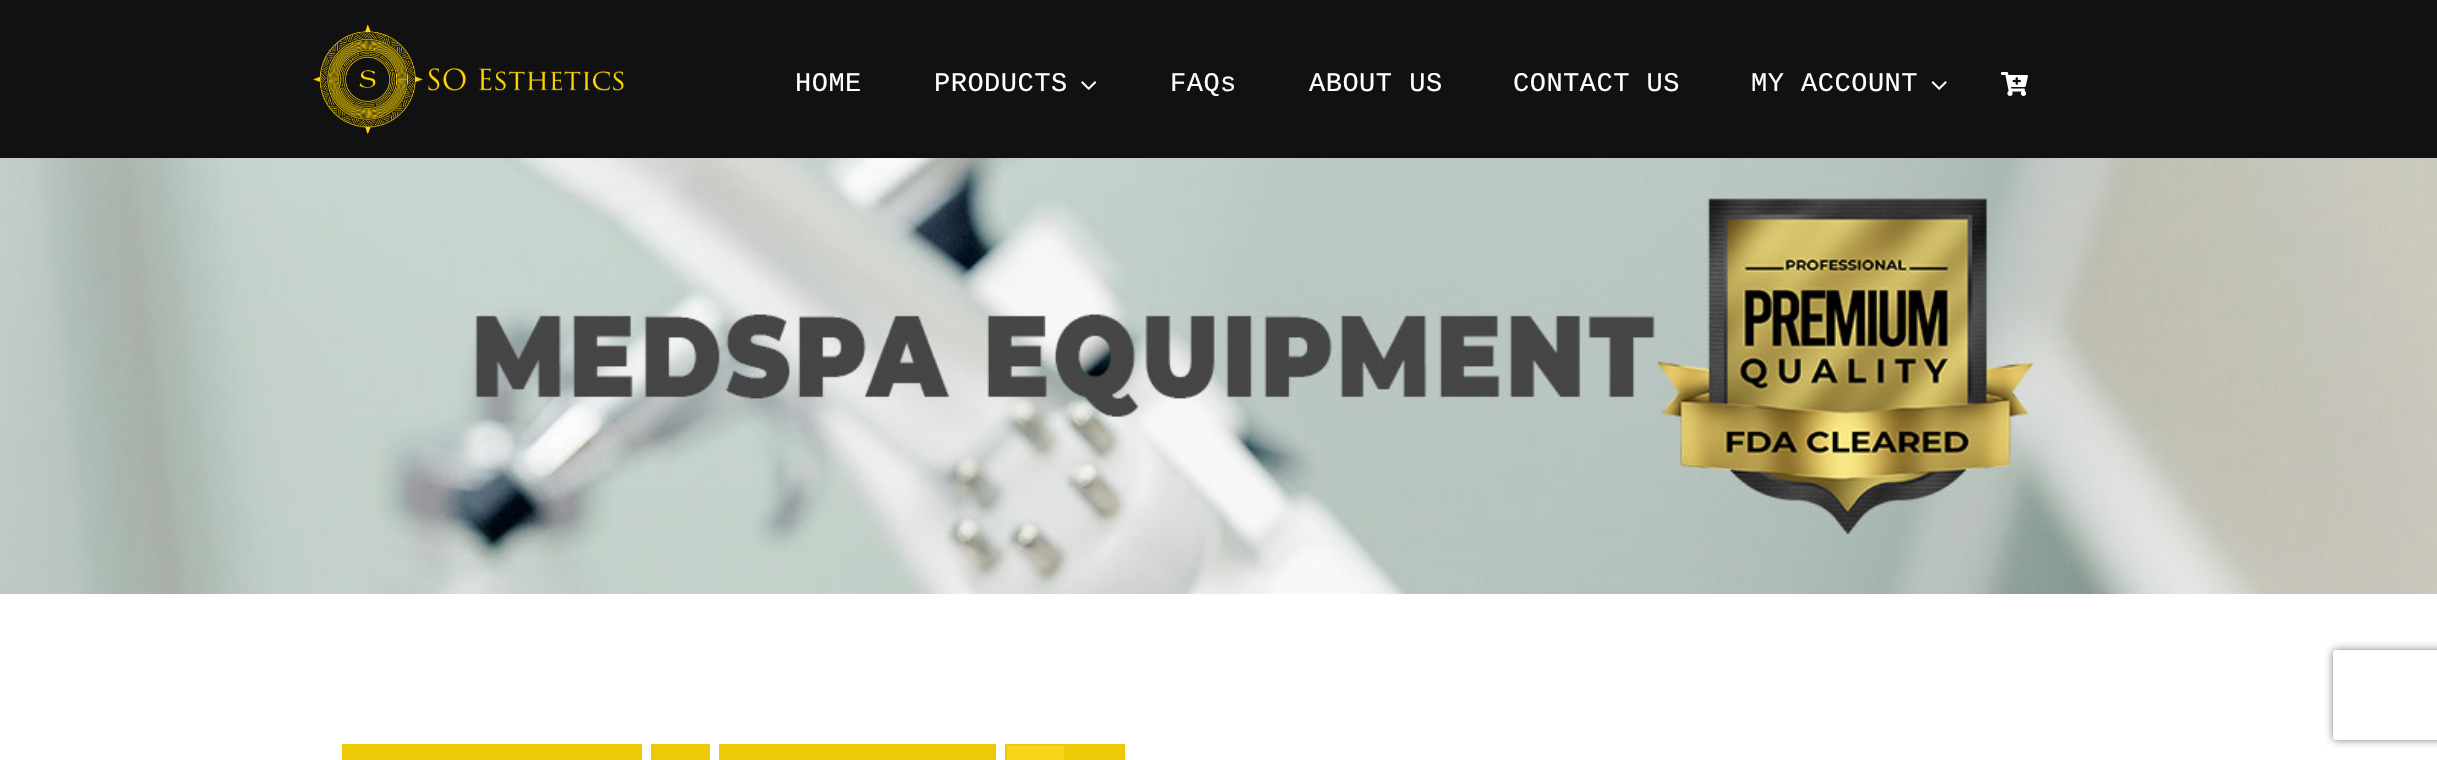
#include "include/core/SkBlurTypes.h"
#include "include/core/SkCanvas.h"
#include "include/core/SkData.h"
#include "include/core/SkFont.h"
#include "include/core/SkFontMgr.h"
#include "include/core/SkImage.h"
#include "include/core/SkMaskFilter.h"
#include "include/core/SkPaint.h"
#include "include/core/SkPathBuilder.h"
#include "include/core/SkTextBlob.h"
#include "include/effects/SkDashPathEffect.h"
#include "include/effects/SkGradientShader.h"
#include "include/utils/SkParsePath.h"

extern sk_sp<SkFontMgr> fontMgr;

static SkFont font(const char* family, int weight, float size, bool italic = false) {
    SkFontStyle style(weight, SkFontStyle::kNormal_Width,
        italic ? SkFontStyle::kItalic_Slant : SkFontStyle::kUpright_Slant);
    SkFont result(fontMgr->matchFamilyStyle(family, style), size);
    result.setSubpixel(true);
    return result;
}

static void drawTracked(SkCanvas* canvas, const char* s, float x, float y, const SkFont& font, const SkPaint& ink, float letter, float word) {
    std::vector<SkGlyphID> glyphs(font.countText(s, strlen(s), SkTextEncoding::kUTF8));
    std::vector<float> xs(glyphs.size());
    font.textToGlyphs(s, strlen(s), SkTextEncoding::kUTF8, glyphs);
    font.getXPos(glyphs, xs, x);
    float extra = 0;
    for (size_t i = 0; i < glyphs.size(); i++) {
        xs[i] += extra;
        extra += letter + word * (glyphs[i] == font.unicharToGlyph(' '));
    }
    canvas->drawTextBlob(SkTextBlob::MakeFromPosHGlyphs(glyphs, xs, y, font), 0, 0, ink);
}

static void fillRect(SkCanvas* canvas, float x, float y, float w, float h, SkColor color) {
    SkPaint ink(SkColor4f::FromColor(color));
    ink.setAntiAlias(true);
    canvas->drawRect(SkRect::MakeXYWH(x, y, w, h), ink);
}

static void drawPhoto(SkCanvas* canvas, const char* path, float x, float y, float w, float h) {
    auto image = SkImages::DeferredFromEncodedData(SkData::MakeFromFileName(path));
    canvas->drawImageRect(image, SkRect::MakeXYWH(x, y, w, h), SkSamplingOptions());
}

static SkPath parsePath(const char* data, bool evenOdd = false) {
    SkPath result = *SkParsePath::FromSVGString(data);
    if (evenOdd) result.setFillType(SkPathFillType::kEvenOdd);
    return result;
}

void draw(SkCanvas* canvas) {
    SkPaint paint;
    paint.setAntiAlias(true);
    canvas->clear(0xFFFFFFFF);
    fillRect(canvas, 0, 0, 2437, 158, 0xFF111111);
    drawPhoto(canvas, "assets/img1.png", 313, 24, 311, 111);
    SkFont font1 = font("Liberation Mono", 400, 27);
    paint.setColor(0xFFFFFFFF);
    drawTracked(canvas, "HOME", 795, 91, font1, paint, 0.5f, 0);
    drawTracked(canvas, "PRODUCTS", 934, 91, font1, paint, 0.5f, 0);
    drawPhoto(canvas, "assets/img2.png", 1081, 81, 16, 9);
    drawTracked(canvas, "FAQs", 1170, 91, font1, paint, 0.5f, 0);
    drawTracked(canvas, "ABOUT US", 1309, 91, font1, paint, 0.5f, 0);
    drawTracked(canvas, "CONTACT US", 1513, 91, font1, paint, 0.5f, 0);
    drawTracked(canvas, "MY ACCOUNT", 1751, 91, font1, paint, 0.5f, 0);
    drawPhoto(canvas, "assets/img3.png", 1931, 81, 16, 9);
    drawPhoto(canvas, "assets/img4.png", 2001, 72, 27, 24);
    drawPhoto(canvas, "assets/img5.png", 0, 158, 2437, 436);
    fillRect(canvas, 342, 744, 300, 16, 0xFFEDCA07);
    fillRect(canvas, 651, 744, 59, 16, 0xFFEDCA07);
    fillRect(canvas, 719, 744, 277, 16, 0xFFEDCA07);
    paint.setStroke(true);
    paint.setStrokeWidth(2);
    paint.setColor(0xFFEDCA07);
    canvas->drawRect(SkRect::MakeXYWH(1006, 745, 118, 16), paint);
    fillRect(canvas, 1007, 746, 57, 14, 0xFFF8D71B);
    fillRect(canvas, 1064, 746, 59, 14, 0xFFEDCA07);
    canvas->save();
    canvas->clipPath(parsePath("M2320 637H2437V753H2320ZM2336 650H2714C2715.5 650 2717 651.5 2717 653V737C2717 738.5 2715.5 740 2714 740H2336C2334.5 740 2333 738.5 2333 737V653C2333 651.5 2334.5 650 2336 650Z", true), true);
    paint.setStroke(false);
    paint.setColor(0xFF808080);
    paint.setMaskFilter(SkMaskFilter::MakeBlur(kNormal_SkBlurStyle, 4));
    canvas->drawRoundRect(SkRect::MakeXYWH(2333, 650, 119, 90), 3, 3, paint);
    paint.setMaskFilter(nullptr);
    canvas->restore();
}
